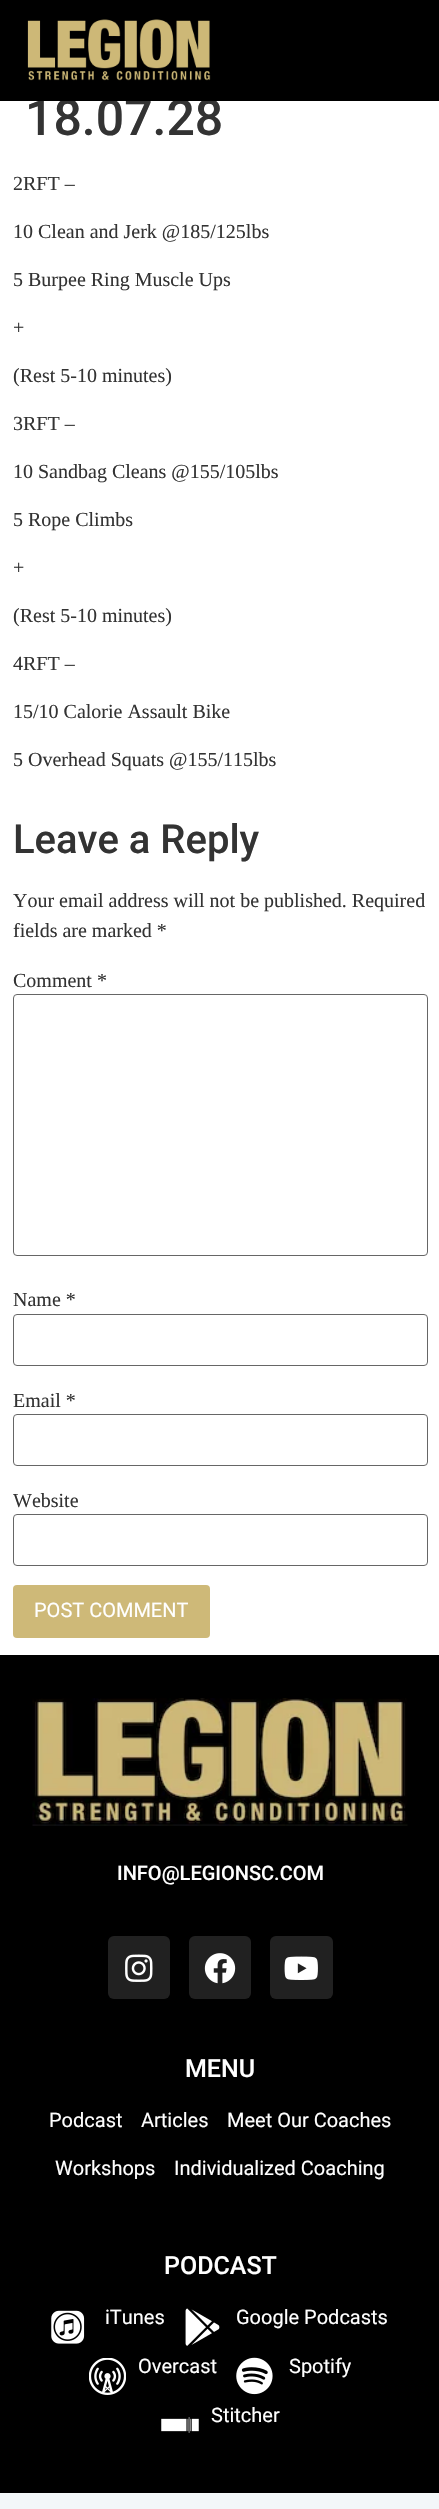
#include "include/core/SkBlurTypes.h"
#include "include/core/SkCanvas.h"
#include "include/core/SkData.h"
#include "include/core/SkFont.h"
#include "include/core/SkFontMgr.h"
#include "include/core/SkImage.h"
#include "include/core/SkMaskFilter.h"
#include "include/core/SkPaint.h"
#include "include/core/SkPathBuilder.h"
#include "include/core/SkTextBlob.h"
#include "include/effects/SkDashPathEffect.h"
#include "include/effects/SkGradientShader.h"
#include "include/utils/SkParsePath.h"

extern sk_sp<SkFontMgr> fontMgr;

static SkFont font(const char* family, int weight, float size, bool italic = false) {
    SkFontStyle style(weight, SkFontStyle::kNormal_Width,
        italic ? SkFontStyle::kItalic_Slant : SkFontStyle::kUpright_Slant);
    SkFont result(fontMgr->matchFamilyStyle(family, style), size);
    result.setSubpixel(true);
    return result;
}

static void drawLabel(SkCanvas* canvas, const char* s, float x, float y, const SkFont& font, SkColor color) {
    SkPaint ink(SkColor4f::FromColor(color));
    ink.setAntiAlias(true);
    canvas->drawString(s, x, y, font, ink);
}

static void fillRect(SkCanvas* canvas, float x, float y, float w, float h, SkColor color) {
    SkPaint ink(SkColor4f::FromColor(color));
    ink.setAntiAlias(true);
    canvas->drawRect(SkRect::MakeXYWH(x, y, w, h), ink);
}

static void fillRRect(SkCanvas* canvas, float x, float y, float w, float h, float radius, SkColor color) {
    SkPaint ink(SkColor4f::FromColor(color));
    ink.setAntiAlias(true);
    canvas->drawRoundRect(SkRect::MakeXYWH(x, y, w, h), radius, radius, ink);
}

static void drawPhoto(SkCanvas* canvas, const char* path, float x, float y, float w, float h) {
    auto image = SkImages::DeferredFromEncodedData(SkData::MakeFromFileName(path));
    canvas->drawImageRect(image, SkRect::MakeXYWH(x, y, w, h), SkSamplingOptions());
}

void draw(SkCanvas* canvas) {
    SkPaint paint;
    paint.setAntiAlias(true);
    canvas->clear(0xFFFFFFFF);
    SkFont font1 = font("Roboto", 500, 50);
    drawLabel(canvas, "18.07.28", 25, 135, font1, 0xFF333333);
    fillRect(canvas, 0, 0, 439, 101, 0xFF000000);
    drawPhoto(canvas, "assets/img1.png", 27, 19, 184, 62);
    SkFont font2 = font("Liberation Serif", 400, 20);
    drawLabel(canvas, "2RFT –", 13, 190, font2, 0xFF333333);
    drawLabel(canvas, "10 Clean and Jerk @185/125lbs", 13, 238, font2, 0xFF333333);
    drawLabel(canvas, "5 Burpee Ring Muscle Ups", 13, 286, font2, 0xFF333333);
    drawLabel(canvas, "+", 13, 334, font2, 0xFF333333);
    drawLabel(canvas, "(Rest 5-10 minutes)", 13, 382, font2, 0xFF333333);
    drawLabel(canvas, "3RFT –", 13, 430, font2, 0xFF333333);
    drawLabel(canvas, "10 Sandbag Cleans @155/105lbs", 13, 478, font2, 0xFF333333);
    drawLabel(canvas, "5 Rope Climbs", 13, 526, font2, 0xFF333333);
    drawLabel(canvas, "+", 13, 574, font2, 0xFF333333);
    drawLabel(canvas, "(Rest 5-10 minutes)", 13, 622, font2, 0xFF333333);
    drawLabel(canvas, "4RFT –", 13, 670, font2, 0xFF333333);
    drawLabel(canvas, "15/10 Calorie Assault Bike", 13, 718, font2, 0xFF333333);
    drawLabel(canvas, "5 Overhead Squats @155/115lbs", 13, 766, font2, 0xFF333333);
    SkFont font3 = font("Roboto", 500, 40);
    drawLabel(canvas, "Leave a Reply", 13, 853, font3, 0xFF333333);
    drawLabel(canvas, "Your email address will not be published. Required", 13, 907, font2, 0xFF333333);
    drawLabel(canvas, "fields are marked *", 13, 937, font2, 0xFF333333);
    drawLabel(canvas, "Comment *", 13, 987, font2, 0xFF333333);
    paint.setStroke(true);
    paint.setStrokeWidth(1);
    paint.setColor(0xFF666666);
    canvas->drawRoundRect(SkRect::MakeXYWH(13.5f, 994.5f, 414, 261), 3.5f, 3.5f, paint);
    drawLabel(canvas, "Name *", 13, 1306, font2, 0xFF333333);
    canvas->drawRoundRect(SkRect::MakeXYWH(13.5f, 1314.5f, 414, 51), 3.5f, 3.5f, paint);
    drawLabel(canvas, "Email *", 13, 1407, font2, 0xFF333333);
    canvas->drawRoundRect(SkRect::MakeXYWH(13.5f, 1414.5f, 414, 51), 3.5f, 3.5f, paint);
    drawLabel(canvas, "Website", 13, 1507, font2, 0xFF333333);
    canvas->drawRoundRect(SkRect::MakeXYWH(13.5f, 1514.5f, 414, 51), 3.5f, 3.5f, paint);
    fillRRect(canvas, 13, 1585, 197, 53, 4, 0xFFCEB978);
    SkFont font4 = font("Roboto", 400, 20);
    drawLabel(canvas, "POST COMMENT", 34, 1617, font4, 0xFFFFFFFF);
    fillRect(canvas, 0, 1655, 439, 838, 0xFF000000);
    drawPhoto(canvas, "assets/img2.png", 32, 1698, 376, 128);
    SkFont font5 = font("Roboto", 500, 20);
    drawLabel(canvas, "INFO@LEGIONSC.COM", 117, 1880, font5, 0xFFFFFFFF);
    fillRRect(canvas, 108, 1936, 62, 63, 6, 0xFF212121);
    drawPhoto(canvas, "assets/img3.png", 125, 1954, 28, 28);
    fillRRect(canvas, 189, 1936, 62, 63, 6, 0xFF212121);
    drawPhoto(canvas, "assets/img4.png", 204, 1953, 32, 31);
    fillRRect(canvas, 270, 1936, 63, 63, 6, 0xFF212121);
    drawPhoto(canvas, "assets/img5.png", 284, 1956, 34, 24);
    SkFont font6 = font("Roboto", 500, 25);
    drawLabel(canvas, "MENU", 185, 2077, font6, 0xFFFFFFFF);
    drawLabel(canvas, "Podcast", 49, 2127, font4, 0xFFFFFFFF);
    drawLabel(canvas, "Articles", 141, 2127, font4, 0xFFFFFFFF);
    drawLabel(canvas, "Meet Our Coaches", 227, 2127, font4, 0xFFFFFFFF);
    drawLabel(canvas, "Workshops", 55, 2175, font4, 0xFFFFFFFF);
    drawLabel(canvas, "Individualized Coaching", 174, 2175, font4, 0xFFFFFFFF);
    drawLabel(canvas, "PODCAST", 164, 2274, font6, 0xFFFFFFFF);
    drawPhoto(canvas, "assets/img6.png", 51, 2310, 34, 34);
    drawLabel(canvas, "iTunes", 105, 2324, font4, 0xFFFFFFFF);
    drawPhoto(canvas, "assets/img7.png", 185, 2308, 35, 38);
    drawLabel(canvas, "Google Podcasts", 236, 2324, font4, 0xFFFFFFFF);
    drawPhoto(canvas, "assets/img8.png", 89, 2358, 37, 37);
    drawLabel(canvas, "Overcast", 138, 2373, font4, 0xFFFFFFFF);
    drawPhoto(canvas, "assets/img9.png", 236, 2357, 37, 38);
    drawLabel(canvas, "Spotify", 289, 2373, font4, 0xFFFFFFFF);
    drawLabel(canvas, "Stitcher", 211, 2422, font4, 0xFFFFFFFF);
    drawPhoto(canvas, "assets/img10.png", 161, 2417, 38, 16);
    fillRect(canvas, 0, 2494, 439, 15, 0xFFF3F7F9);
    fillRect(canvas, 0, 2493, 439, 1, 0xFFF5F9FA);
}
